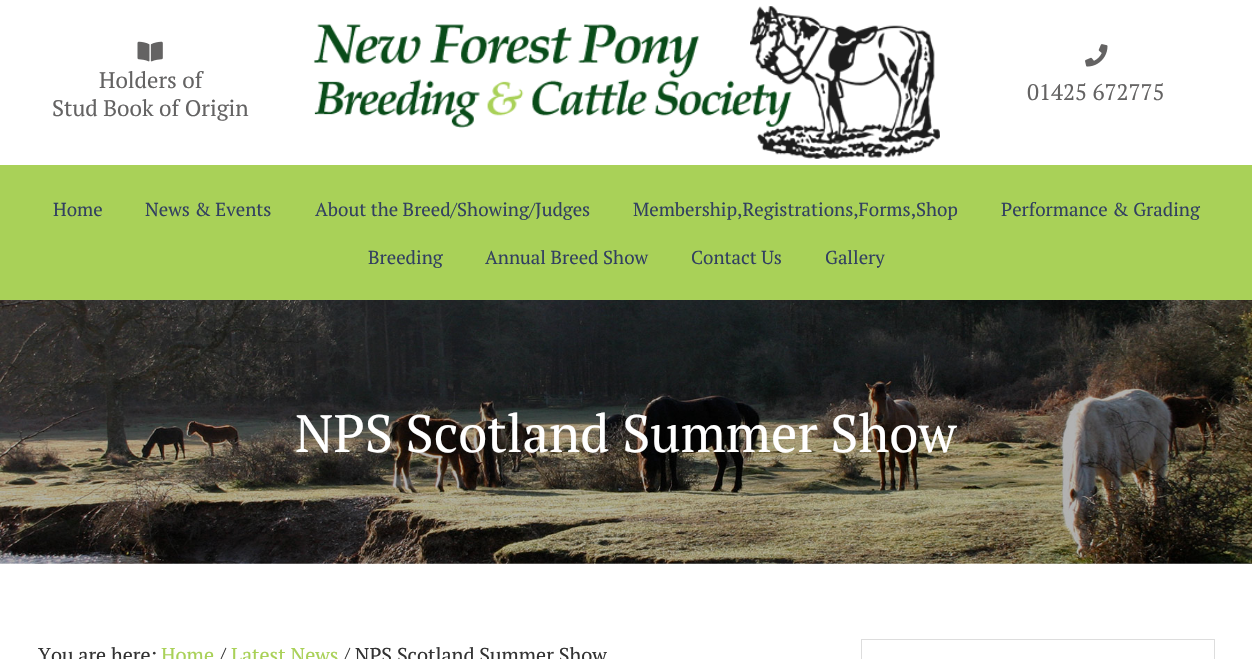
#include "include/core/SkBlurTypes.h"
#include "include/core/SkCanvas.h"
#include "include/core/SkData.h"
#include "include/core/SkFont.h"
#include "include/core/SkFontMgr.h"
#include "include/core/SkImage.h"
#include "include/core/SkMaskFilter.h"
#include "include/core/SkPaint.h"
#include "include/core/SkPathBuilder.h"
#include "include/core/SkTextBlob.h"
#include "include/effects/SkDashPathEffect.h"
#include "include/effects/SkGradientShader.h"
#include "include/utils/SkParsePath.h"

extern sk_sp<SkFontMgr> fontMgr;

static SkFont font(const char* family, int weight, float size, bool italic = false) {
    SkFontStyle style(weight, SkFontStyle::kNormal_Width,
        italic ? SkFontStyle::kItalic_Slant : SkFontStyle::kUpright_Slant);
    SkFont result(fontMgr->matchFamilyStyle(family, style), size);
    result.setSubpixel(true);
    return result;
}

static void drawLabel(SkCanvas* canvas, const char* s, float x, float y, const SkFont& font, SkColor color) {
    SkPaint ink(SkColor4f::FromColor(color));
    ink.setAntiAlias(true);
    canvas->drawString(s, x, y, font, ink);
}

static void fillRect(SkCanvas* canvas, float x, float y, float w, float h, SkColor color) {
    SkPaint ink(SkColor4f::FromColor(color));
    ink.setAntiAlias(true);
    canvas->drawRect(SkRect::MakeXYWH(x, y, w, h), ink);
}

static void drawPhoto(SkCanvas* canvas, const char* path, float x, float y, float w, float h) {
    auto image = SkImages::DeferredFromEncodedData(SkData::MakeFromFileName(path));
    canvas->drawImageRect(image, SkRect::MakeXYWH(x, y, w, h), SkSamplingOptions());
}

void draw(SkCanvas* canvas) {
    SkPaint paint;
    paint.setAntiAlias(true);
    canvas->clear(0xFFFFFFFF);
    drawPhoto(canvas, "assets/img1.png", 137, 41, 26, 21);
    SkFont font1 = font("PT Serif", 400, 22.5f);
    drawLabel(canvas, "Holders of", 99, 88, font1, 0xFF646363);
    drawLabel(canvas, "Stud Book of Origin", 52, 116, font1, 0xFF646363);
    drawPhoto(canvas, "assets/img2.png", 313, 6, 627, 153);
    drawPhoto(canvas, "assets/img3.png", 1085, 44, 23, 23);
    drawLabel(canvas, "01425 672775", 1027, 100, font1, 0xFF646363);
    fillRect(canvas, 0, 165, 1252, 135, 0xFFA9D158);
    SkFont font2 = font("PT Serif", 400, 18.75f);
    drawLabel(canvas, "Home", 53, 216, font2, 0xFF324060);
    drawLabel(canvas, "News & Events", 145, 216, font2, 0xFF324060);
    drawLabel(canvas, "About the Breed/Showing/Judges", 315, 216, font2, 0xFF324060);
    drawLabel(canvas, "Membership,Registrations,Forms,Shop", 633, 216, font2, 0xFF324060);
    drawLabel(canvas, "Performance & Grading", 1001, 216, font2, 0xFF324060);
    drawLabel(canvas, "Breeding", 368, 264, font2, 0xFF324060);
    drawLabel(canvas, "Annual Breed Show", 485, 264, font2, 0xFF324060);
    drawLabel(canvas, "Contact Us", 691, 264, font2, 0xFF324060);
    drawLabel(canvas, "Gallery", 825, 264, font2, 0xFF324060);
    drawPhoto(canvas, "assets/img4.png", 0, 300, 1252, 264);
    SkFont font3 = font("PT Serif", 400, 52.5f);
    drawLabel(canvas, "NPS Scotland Summer Show", 295, 452, font3, 0xFFFFFFFF);
    SkFont font4 = font("PT Serif", 400, 20);
    drawLabel(canvas, "You are here:", 38, 662, font4, 0xFF333333);
    drawLabel(canvas, "Home", 161, 662, font4, 0xFFA9D158);
    drawLabel(canvas, "/", 219, 662, font4, 0xFF333333);
    drawLabel(canvas, "Latest News", 231, 662, font4, 0xFFA9D158);
    drawLabel(canvas, "/ NPS Scotland Summer Show", 343, 662, font4, 0xFF333333);
    paint.setStroke(true);
    paint.setStrokeWidth(1);
    paint.setColor(0xFFDDDDDD);
    canvas->drawRect(SkRect::MakeXYWH(861.5f, 639.5f, 353, 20), paint);
}
